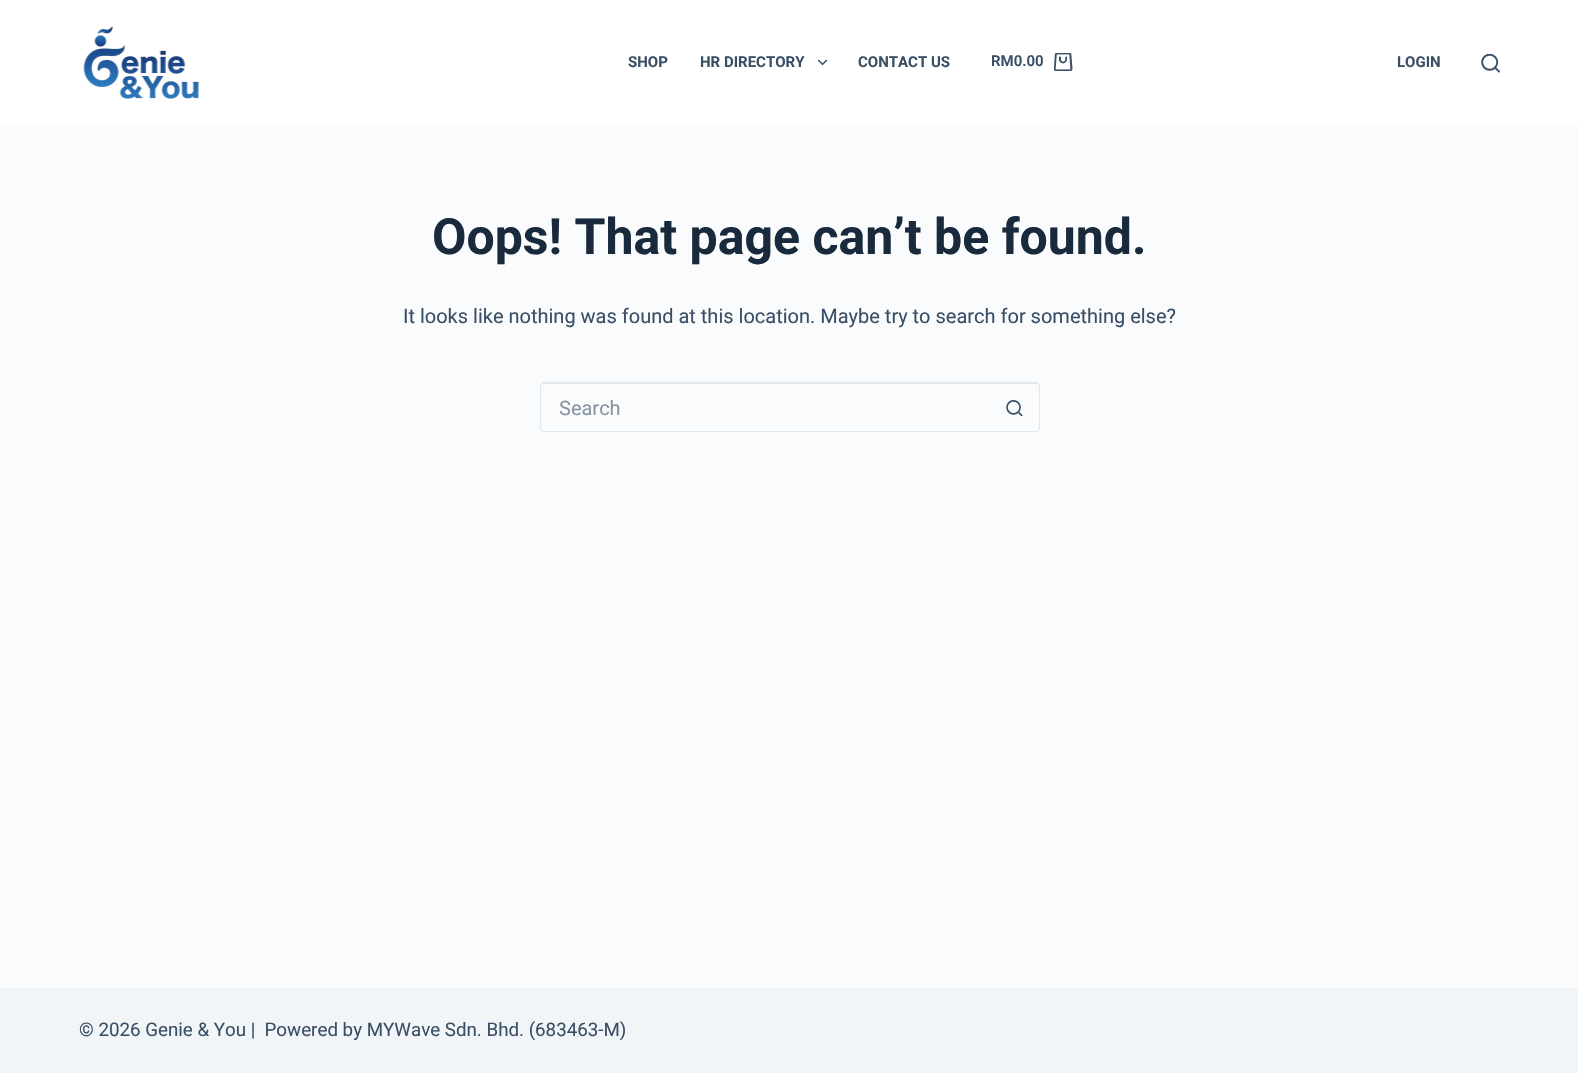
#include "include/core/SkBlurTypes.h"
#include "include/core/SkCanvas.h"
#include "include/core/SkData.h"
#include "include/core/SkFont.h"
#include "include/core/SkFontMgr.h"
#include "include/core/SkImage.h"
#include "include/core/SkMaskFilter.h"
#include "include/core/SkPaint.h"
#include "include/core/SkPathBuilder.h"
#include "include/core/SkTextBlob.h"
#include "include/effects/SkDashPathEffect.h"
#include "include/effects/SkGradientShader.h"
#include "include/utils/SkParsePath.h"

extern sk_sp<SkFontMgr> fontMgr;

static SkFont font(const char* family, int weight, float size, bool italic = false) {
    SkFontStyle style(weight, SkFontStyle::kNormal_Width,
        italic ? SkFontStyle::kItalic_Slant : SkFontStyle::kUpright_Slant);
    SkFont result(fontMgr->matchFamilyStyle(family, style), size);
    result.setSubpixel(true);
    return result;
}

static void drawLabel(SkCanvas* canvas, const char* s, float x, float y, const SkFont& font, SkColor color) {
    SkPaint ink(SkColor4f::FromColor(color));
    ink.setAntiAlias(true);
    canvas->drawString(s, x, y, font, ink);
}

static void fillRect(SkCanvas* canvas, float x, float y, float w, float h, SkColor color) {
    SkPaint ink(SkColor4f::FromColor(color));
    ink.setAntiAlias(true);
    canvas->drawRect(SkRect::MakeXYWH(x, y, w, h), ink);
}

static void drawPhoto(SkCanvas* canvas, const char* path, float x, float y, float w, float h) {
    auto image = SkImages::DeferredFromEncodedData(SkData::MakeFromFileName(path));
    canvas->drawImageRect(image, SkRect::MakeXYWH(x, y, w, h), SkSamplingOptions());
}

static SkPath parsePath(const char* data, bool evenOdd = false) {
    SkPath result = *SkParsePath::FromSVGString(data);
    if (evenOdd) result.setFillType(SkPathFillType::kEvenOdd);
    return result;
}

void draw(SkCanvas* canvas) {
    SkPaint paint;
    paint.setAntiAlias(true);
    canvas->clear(0xFFFAFBFC);
    fillRect(canvas, 0, 0, 1578, 125, 0xFFFFFFFF);
    drawPhoto(canvas, "assets/img1.png", 83, 26, 116, 73);
    SkFont font1 = font("Roboto", 700, 15);
    drawLabel(canvas, "SHOP", 628, 67, font1, 0xFF3A4F66);
    drawLabel(canvas, "HR DIRECTORY", 700, 67, font1, 0xFF3A4F66);
    drawPhoto(canvas, "assets/img2.png", 818, 59, 10, 7);
    drawLabel(canvas, "CONTACT US", 858, 67, font1, 0xFF3A4F66);
    SkFont font2 = font("Roboto", 600, 15);
    drawLabel(canvas, "RM0.00", 991, 66, font2, 0xFF3A4F66);
    drawPhoto(canvas, "assets/img3.png", 1054, 53, 19, 18);
    drawLabel(canvas, "LOGIN", 1397, 67, font1, 0xFF3A4F66);
    drawPhoto(canvas, "assets/img4.png", 1481, 54, 19, 19);
    SkFont font3 = font("Roboto", 700, 50);
    drawLabel(canvas, "Oops! That page can’t be found.", 432, 254, font3, 0xFF192A3D);
    SkFont font4 = font("Roboto", 400, 20);
    drawLabel(canvas, "It looks like nothing was found at this location. Maybe try to search for something else?", 403, 323, font4, 0xFF3A4F66);
    paint.setColor(0xFFE1E8ED);
    canvas->drawPath(parsePath("M544 382H990V432H544C542 432 540 431 540 429V386C540 384 542 382 544 382ZM544 384H990V431H544C542 431 541 430 541 429V386C541 385 542 384 544 384Z", true), paint);
    drawLabel(canvas, "Search", 559, 415, font4, 0xFF8794A2);
    canvas->drawPath(parsePath("M990 382H1036C1038 382 1040 384 1040 386V429C1040 431 1038 432 1036 432H990ZM990 384H1036C1038 384 1039 385 1039 386V429C1039 430 1038 431 1036 431H990Z", true), paint);
    drawPhoto(canvas, "assets/img5.png", 1006, 400, 17, 16);
    fillRect(canvas, 0, 988, 1578, 85, 0xFFF2F5F7);
    SkFont font5 = font("Roboto", 400, 18.75f);
    drawLabel(canvas, "© 2026 Genie & You |  Powered by MYWave Sdn. Bhd. (683463-M)", 79, 1036, font5, 0xFF3A4F66);
}
